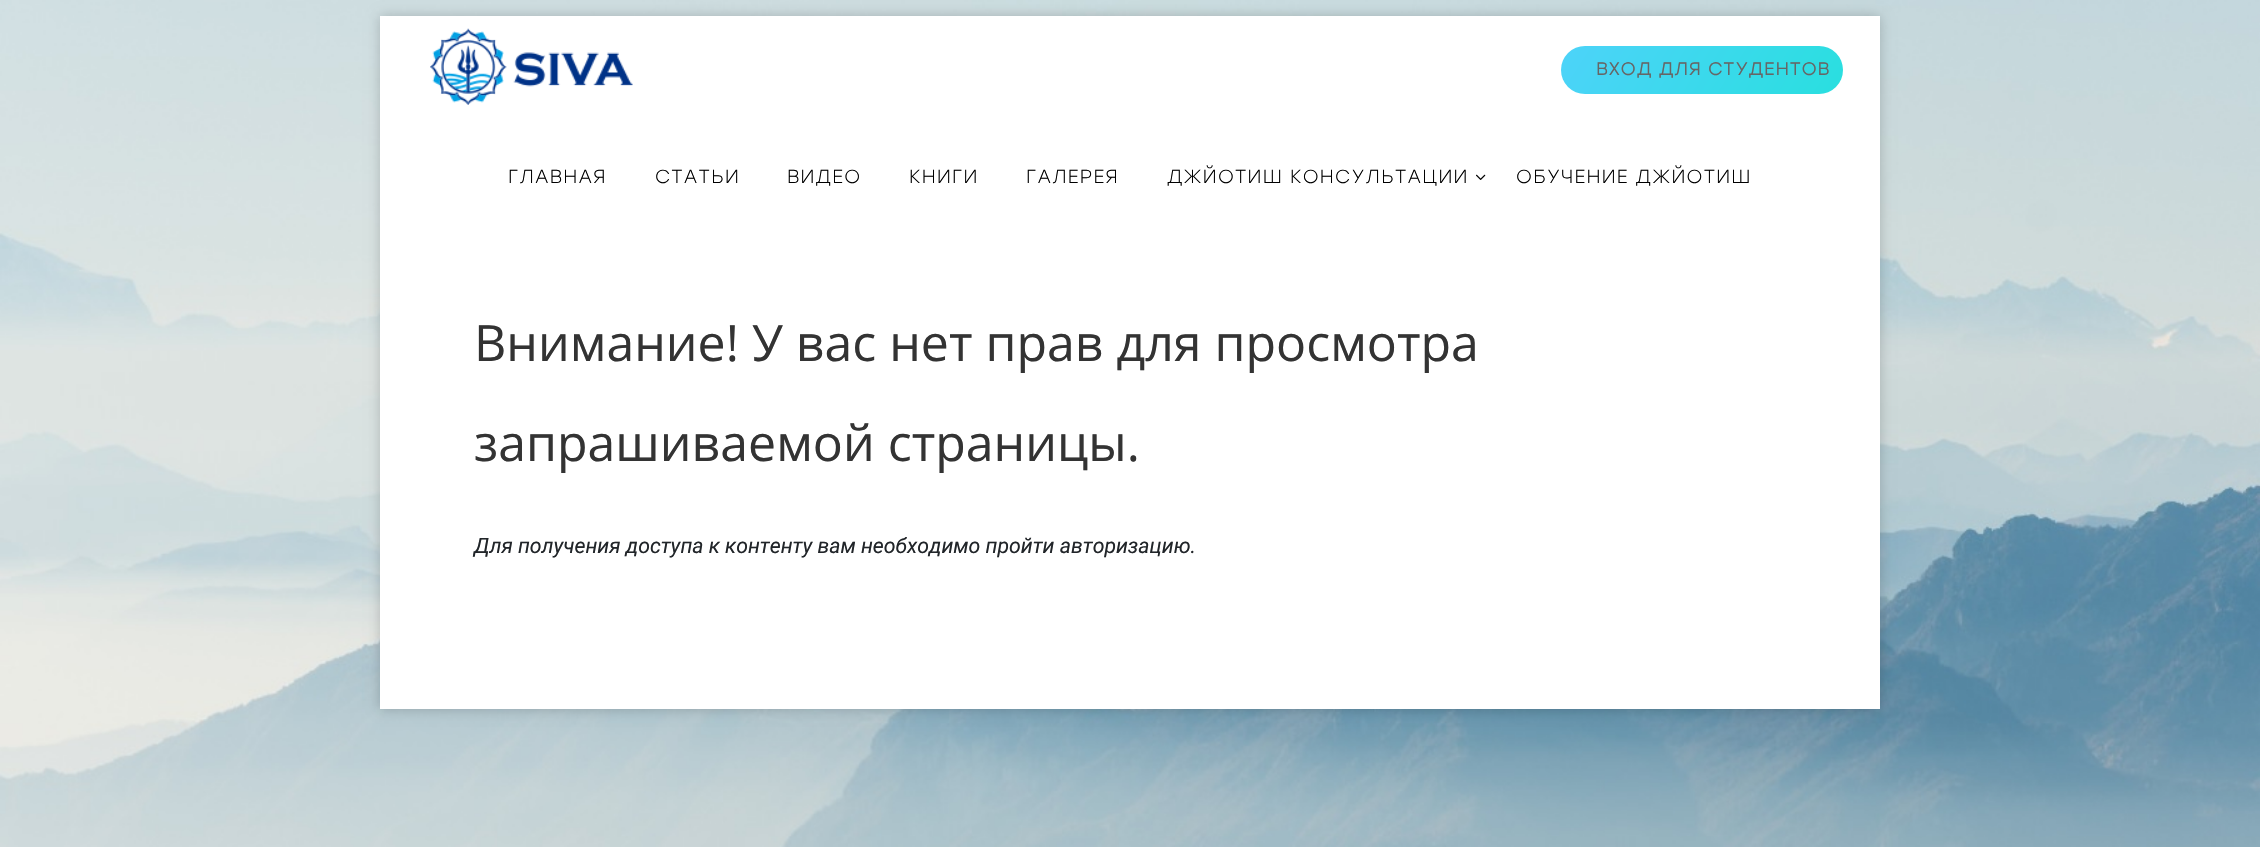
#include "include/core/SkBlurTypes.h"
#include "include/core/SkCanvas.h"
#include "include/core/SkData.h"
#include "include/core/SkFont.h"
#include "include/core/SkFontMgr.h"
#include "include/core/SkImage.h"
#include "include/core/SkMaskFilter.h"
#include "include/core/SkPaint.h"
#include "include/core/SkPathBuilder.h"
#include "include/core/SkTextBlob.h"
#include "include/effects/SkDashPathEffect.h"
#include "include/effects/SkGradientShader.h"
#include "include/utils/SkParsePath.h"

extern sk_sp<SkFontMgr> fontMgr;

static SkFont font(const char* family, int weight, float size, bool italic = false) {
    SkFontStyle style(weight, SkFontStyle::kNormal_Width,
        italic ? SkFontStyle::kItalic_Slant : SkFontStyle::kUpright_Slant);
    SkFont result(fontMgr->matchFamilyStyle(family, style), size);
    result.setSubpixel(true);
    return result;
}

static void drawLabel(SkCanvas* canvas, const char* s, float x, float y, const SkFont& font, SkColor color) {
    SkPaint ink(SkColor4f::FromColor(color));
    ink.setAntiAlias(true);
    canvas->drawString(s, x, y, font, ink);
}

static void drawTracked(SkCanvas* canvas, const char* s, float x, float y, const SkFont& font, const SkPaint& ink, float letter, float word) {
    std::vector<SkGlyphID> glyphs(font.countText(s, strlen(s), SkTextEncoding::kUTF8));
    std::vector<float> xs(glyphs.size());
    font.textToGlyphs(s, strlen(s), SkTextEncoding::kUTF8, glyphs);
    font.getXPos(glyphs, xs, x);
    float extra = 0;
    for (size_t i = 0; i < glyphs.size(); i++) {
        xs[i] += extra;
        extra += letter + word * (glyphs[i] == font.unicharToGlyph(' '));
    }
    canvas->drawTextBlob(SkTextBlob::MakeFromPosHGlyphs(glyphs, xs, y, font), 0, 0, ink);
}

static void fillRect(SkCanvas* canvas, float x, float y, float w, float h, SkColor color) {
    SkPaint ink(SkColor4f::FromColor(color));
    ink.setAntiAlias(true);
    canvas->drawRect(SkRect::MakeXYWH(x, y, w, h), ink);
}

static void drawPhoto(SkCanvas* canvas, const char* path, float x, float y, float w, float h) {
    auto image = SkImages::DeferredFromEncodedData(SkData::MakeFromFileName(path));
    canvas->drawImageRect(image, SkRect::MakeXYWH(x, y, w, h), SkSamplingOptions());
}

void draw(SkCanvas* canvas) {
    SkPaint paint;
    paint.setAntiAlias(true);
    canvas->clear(0xFFFFFFFF);
    drawPhoto(canvas, "assets/img1.png", 0, 0, 2260, 847);
    paint.setColor(0x33000000);
    paint.setMaskFilter(SkMaskFilter::MakeBlur(kNormal_SkBlurStyle, 6));
    canvas->drawRect(SkRect::MakeXYWH(380, 16, 1500, 693), paint);
    paint.setMaskFilter(nullptr);
    fillRect(canvas, 380, 16, 1500, 693, 0xFFFFFFFF);
    drawPhoto(canvas, "assets/img2.png", 430, 28, 203, 77);
    {
        const SkColor colors[] = {0xFF4DD3F9, 0xFF29DFDF};
        const float stops[] = {0, 1};
        const SkPoint ends[] = {{1592, -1.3f}, {1812, 141}};
        paint.setShader(SkGradientShader::MakeLinear(ends, colors, stops, 2, SkTileMode::kClamp));
        paint.setAlpha(255);
    }
    canvas->drawRoundRect(SkRect::MakeXYWH(1561, 46, 282, 48), 24, 24, paint);
    SkFont font1 = font("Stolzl", 700, 17.5f);
    paint.setShader(nullptr);
    paint.setColor(0xFF666666);
    drawTracked(canvas, "ВХОД ДЛЯ СТУДЕНТОВ", 1596, 75, font1, paint, 1.25f, 0);
    SkFont font2 = font("Stolzl", 300, 18.75f);
    paint.setColor(0xFF000000);
    drawTracked(canvas, "ГЛАВНАЯ", 508, 183, font2, paint, 1.25f, 0);
    drawTracked(canvas, "СТАТЬИ", 655, 183, font2, paint, 1.25f, 0);
    drawTracked(canvas, "ВИДЕО", 787, 183, font2, paint, 1.25f, 0);
    drawTracked(canvas, "КНИГИ", 909, 183, font2, paint, 1.25f, 0);
    drawTracked(canvas, "ГАЛЕРЕЯ", 1026, 183, font2, paint, 1.25f, 0);
    drawTracked(canvas, "ДЖЙОТИШ КОНСУЛЬТАЦИИ", 1167, 183, font2, paint, 1.25f, 0);
    drawPhoto(canvas, "assets/img3.png", 1476, 174, 10, 6);
    drawTracked(canvas, "ОБУЧЕНИЕ ДЖЙОТИШ", 1516, 183, font2, paint, 1.25f, 0);
    SkFont font3 = font("Open Sans", 400, 50);
    drawLabel(canvas, "Внимание! У вас нет прав для просмотра", 474, 361, font3, 0xFF333333);
    drawLabel(canvas, "запрашиваемой страницы.", 474, 461, font3, 0xFF333333);
    SkFont font4 = font("Roboto", 400, 21.25f, true);
    drawLabel(canvas, "Для получения доступа к контенту вам необходимо пройти авторизацию.", 474, 553, font4, 0xFF212529);
}
